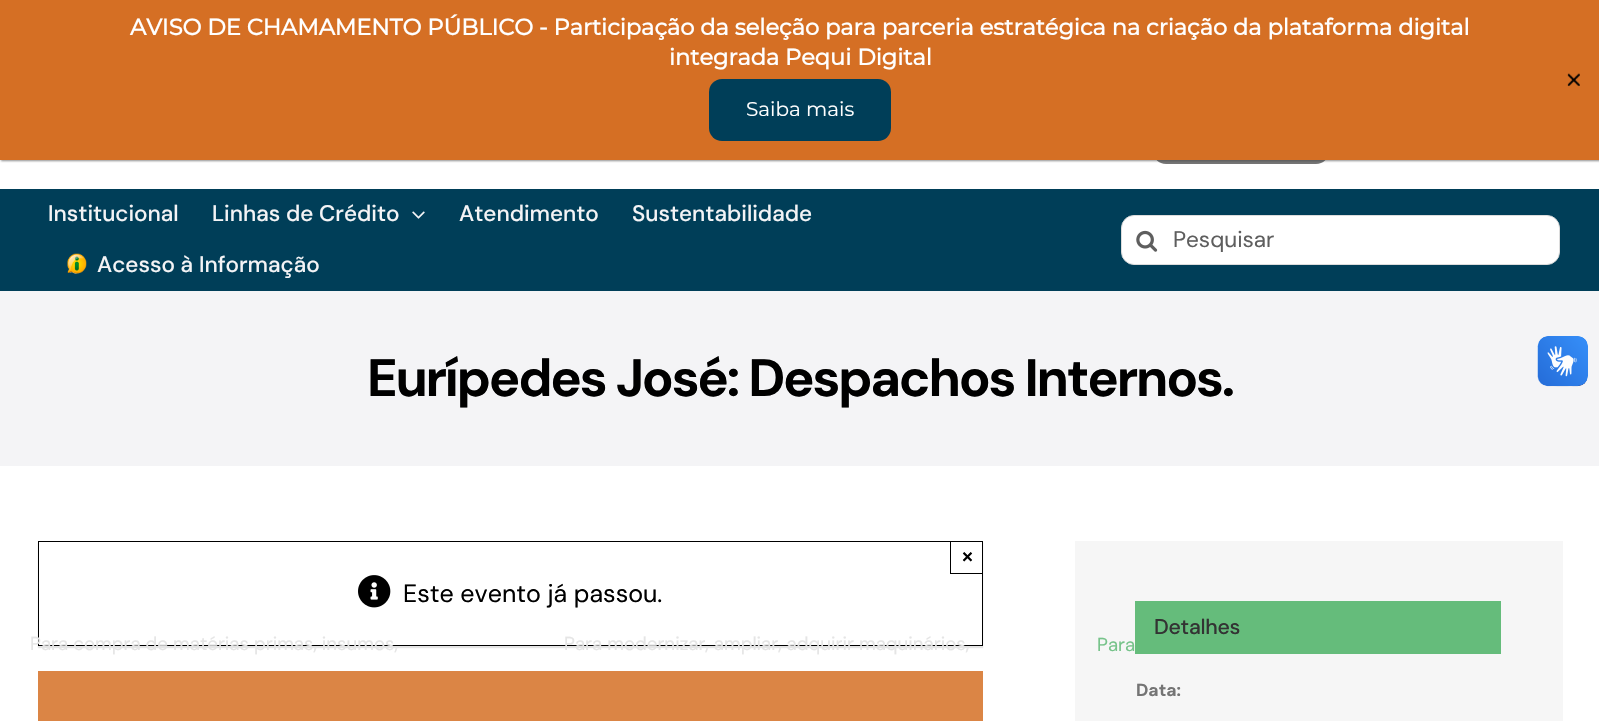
#include "include/core/SkBlurTypes.h"
#include "include/core/SkCanvas.h"
#include "include/core/SkData.h"
#include "include/core/SkFont.h"
#include "include/core/SkFontMgr.h"
#include "include/core/SkImage.h"
#include "include/core/SkMaskFilter.h"
#include "include/core/SkPaint.h"
#include "include/core/SkPathBuilder.h"
#include "include/core/SkTextBlob.h"
#include "include/effects/SkDashPathEffect.h"
#include "include/effects/SkGradientShader.h"
#include "include/utils/SkParsePath.h"

extern sk_sp<SkFontMgr> fontMgr;

static SkFont font(const char* family, int weight, float size, bool italic = false) {
    SkFontStyle style(weight, SkFontStyle::kNormal_Width,
        italic ? SkFontStyle::kItalic_Slant : SkFontStyle::kUpright_Slant);
    SkFont result(fontMgr->matchFamilyStyle(family, style), size);
    result.setSubpixel(true);
    return result;
}

static void drawLabel(SkCanvas* canvas, const char* s, float x, float y, const SkFont& font, SkColor color) {
    SkPaint ink(SkColor4f::FromColor(color));
    ink.setAntiAlias(true);
    canvas->drawString(s, x, y, font, ink);
}

static void drawTracked(SkCanvas* canvas, const char* s, float x, float y, const SkFont& font, const SkPaint& ink, float letter, float word) {
    std::vector<SkGlyphID> glyphs(font.countText(s, strlen(s), SkTextEncoding::kUTF8));
    std::vector<float> xs(glyphs.size());
    font.textToGlyphs(s, strlen(s), SkTextEncoding::kUTF8, glyphs);
    font.getXPos(glyphs, xs, x);
    float extra = 0;
    for (size_t i = 0; i < glyphs.size(); i++) {
        xs[i] += extra;
        extra += letter + word * (glyphs[i] == font.unicharToGlyph(' '));
    }
    canvas->drawTextBlob(SkTextBlob::MakeFromPosHGlyphs(glyphs, xs, y, font), 0, 0, ink);
}

static void fillRect(SkCanvas* canvas, float x, float y, float w, float h, SkColor color) {
    SkPaint ink(SkColor4f::FromColor(color));
    ink.setAntiAlias(true);
    canvas->drawRect(SkRect::MakeXYWH(x, y, w, h), ink);
}

static void fillRRect(SkCanvas* canvas, float x, float y, float w, float h, float radius, SkColor color) {
    SkPaint ink(SkColor4f::FromColor(color));
    ink.setAntiAlias(true);
    canvas->drawRoundRect(SkRect::MakeXYWH(x, y, w, h), radius, radius, ink);
}

static void drawPhoto(SkCanvas* canvas, const char* path, float x, float y, float w, float h) {
    auto image = SkImages::DeferredFromEncodedData(SkData::MakeFromFileName(path));
    canvas->drawImageRect(image, SkRect::MakeXYWH(x, y, w, h), SkSamplingOptions());
}

void draw(SkCanvas* canvas) {
    SkPaint paint;
    paint.setAntiAlias(true);
    canvas->clear(0xFFFFFFFF);
    fillRRect(canvas, 1153, 89, 176, 75, 13, 0xFF747474);
    paint.setColor(0x99424242);
    paint.setMaskFilter(SkMaskFilter::MakeBlur(kNormal_SkBlurStyle, 1));
    canvas->drawRect(SkRect::MakeXYWH(1, 1, 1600, 160), paint);
    paint.setMaskFilter(nullptr);
    fillRect(canvas, 0, 0, 1599, 160, 0xFFD56F24);
    SkFont font1 = font("Montserrat", 700, 22.5f);
    drawLabel(canvas, "AVISO DE CHAMAMENTO PÚBLICO - Participação da seleção para parceria estratégica na criação da plataforma digital", 130, 35, font1, 0xFFFFFFFF);
    drawLabel(canvas, "integrada Pequi Digital", 669, 65, font1, 0xFFFFFFFF);
    fillRRect(canvas, 709, 79, 182, 62, 13, 0xFF003E58);
    SkFont font2 = font("Montserrat", 100, 20);
    drawLabel(canvas, "Saiba mais", 746, 116, font2, 0xFFFFFFFF);
    drawPhoto(canvas, "assets/img1.png", 1567, 73, 13, 14);
    fillRect(canvas, 0, 291, 1599, 175, 0xFFF4F4F6);
    drawPhoto(canvas, "assets/img2.png", 1537, 336, 51, 51);
    drawPhoto(canvas, "assets/img3.png", 1538, 336, 50, 50);
    fillRect(canvas, 0, 189, 1599, 102, 0xFF003E58);
    SkFont font3 = font("DM Sans", 500, 22.5f);
    drawLabel(canvas, "Linhas de Crédito", 212, 221, font3, 0xFFF4F4F6);
    drawPhoto(canvas, "assets/img4.png", 412, 211, 13, 8);
    paint.setColor(0x1A000000);
    paint.setMaskFilter(SkMaskFilter::MakeBlur(kNormal_SkBlurStyle, 0.5f));
    canvas->drawRect(SkRect::MakeXYWH(38, 543, 945, 105), paint);
    paint.setMaskFilter(nullptr);
    paint.setColor(0xFFFFFFFF);
    canvas->drawRect(SkRect::MakeXYWH(38.5f, 541.5f, 944, 104), paint);
    paint.setStroke(true);
    paint.setStrokeWidth(1);
    paint.setColor(0xFF000000);
    canvas->drawRect(SkRect::MakeXYWH(38.5f, 541.5f, 944, 104), paint);
    SkFont font4 = font("DM Sans", 400, 18.75f);
    drawLabel(canvas, "Para compra de matérias primas, insumos,", 30, 650, font4, 0xFFE5E5E5);
    drawLabel(canvas, "Para modernizar, ampliar, adquirir maquinários,", 564, 650, font4, 0xFFE5E5E5);
    fillRect(canvas, 1075, 541, 488, 180, 0xFFF6F6F6);
    drawLabel(canvas, "Para", 1097, 651, font4, 0xFF76C38A);
    drawLabel(canvas, "Institucional", 48, 221, font3, 0xFFF4F4F6);
    drawLabel(canvas, "Atendimento", 459, 221, font3, 0xFFF4F4F6);
    drawLabel(canvas, "Sustentabilidade", 632, 221, font3, 0xFFF4F4F6);
    drawPhoto(canvas, "assets/img5.png", 67, 253, 20, 21);
    drawLabel(canvas, "Acesso à Informação", 97, 272, font3, 0xFFF4F4F6);
    paint.setStroke(false);
    paint.setColor(0xFFFFFFFF);
    canvas->drawRoundRect(SkRect::MakeXYWH(1121.5f, 215.5f, 438, 49), 12.5f, 12.5f, paint);
    paint.setStroke(true);
    paint.setColor(0xFFDCDCDC);
    canvas->drawRoundRect(SkRect::MakeXYWH(1121.5f, 215.5f, 438, 49), 12.5f, 12.5f, paint);
    drawPhoto(canvas, "assets/img6.png", 1136, 230, 22, 22);
    SkFont font5 = font("DM Sans", 400, 22.5f);
    drawLabel(canvas, "Pesquisar", 1173, 247, font5, 0xFF5E5E5E);
    SkFont font6 = font("DM Sans", 700, 52.5f);
    paint.setStroke(false);
    paint.setColor(0xFF000000);
    drawTracked(canvas, "Eurípedes José: Despachos Internos.", 367, 396, font6, paint, -2.2f, 0);
    fillRect(canvas, 950, 573, 33, 1, 0xFF000000);
    fillRect(canvas, 950, 541, 1, 33, 0xFF000000);
    SkFont font7 = font("Liberation Sans", 700, 18.75f);
    drawLabel(canvas, "×", 962, 563, font7, 0xFF000000);
    drawPhoto(canvas, "assets/img7.png", 358, 575, 33, 33);
    SkFont font8 = font("DM Sans", 400, 25);
    drawLabel(canvas, "Este evento já passou.", 403, 602, font8, 0xFF000000);
    fillRect(canvas, 38, 671, 945, 50, 0xFFDB8545);
    fillRect(canvas, 1135, 601, 366, 53, 0xFF65BC7B);
    SkFont font9 = font("DM Sans", 500, 21.25f);
    paint.setColor(0xFF333333);
    drawTracked(canvas, "Detalhes", 1154, 634, font9, paint, -0.25f, 0);
    SkFont font10 = font("DM Sans", 700, 17.5f);
    drawLabel(canvas, "Data:", 1136, 696, font10, 0xFF747474);
}
